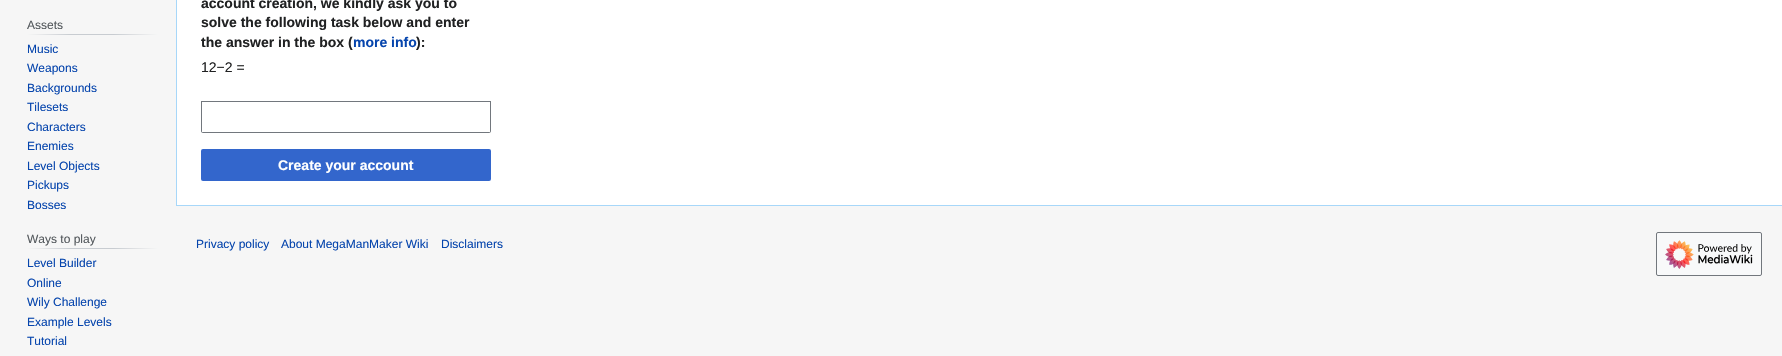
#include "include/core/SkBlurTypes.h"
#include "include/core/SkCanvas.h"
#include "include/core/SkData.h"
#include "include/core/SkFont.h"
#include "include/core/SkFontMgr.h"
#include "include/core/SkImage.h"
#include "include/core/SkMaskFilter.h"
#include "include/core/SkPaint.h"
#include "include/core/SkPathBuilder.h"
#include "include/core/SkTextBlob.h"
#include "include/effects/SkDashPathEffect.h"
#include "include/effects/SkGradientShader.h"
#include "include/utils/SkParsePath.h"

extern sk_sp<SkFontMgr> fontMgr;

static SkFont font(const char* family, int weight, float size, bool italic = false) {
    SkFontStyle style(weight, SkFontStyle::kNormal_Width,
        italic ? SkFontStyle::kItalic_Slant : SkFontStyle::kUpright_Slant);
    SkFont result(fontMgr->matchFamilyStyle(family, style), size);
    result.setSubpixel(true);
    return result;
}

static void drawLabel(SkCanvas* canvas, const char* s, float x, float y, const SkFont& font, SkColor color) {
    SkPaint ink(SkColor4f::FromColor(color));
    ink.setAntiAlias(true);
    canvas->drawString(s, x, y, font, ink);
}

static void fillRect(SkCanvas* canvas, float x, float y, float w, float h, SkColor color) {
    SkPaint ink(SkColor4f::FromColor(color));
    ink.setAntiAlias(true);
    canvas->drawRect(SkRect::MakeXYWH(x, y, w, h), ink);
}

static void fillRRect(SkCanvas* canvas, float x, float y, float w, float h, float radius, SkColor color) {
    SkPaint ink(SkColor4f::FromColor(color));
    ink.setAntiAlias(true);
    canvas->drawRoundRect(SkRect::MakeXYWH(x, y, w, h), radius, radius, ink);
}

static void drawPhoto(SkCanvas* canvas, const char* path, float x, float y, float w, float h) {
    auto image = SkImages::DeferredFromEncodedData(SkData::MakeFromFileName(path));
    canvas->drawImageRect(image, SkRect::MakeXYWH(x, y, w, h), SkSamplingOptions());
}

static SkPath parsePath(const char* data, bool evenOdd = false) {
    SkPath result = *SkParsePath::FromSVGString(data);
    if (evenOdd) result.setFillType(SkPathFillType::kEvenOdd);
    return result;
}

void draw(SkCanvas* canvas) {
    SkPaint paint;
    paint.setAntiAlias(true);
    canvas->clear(0xFFF6F6F6);
    {
        const SkColor colors[] = {0xFFF6F6F6, 0xFFC8CCD1, 0xFFC8CCD1, 0xFFF6F6F6};
        const float stops[] = {0, 0.33f, 0.66f, 1};
        const SkPoint ends[] = {{27, 35}, {158, 34}};
        paint.setShader(SkGradientShader::MakeLinear(ends, colors, stops, 4, SkTileMode::kClamp));
        paint.setAlpha(255);
    }
    canvas->drawRect(SkRect::MakeXYWH(27, 34, 131, 1), paint);
    SkFont font1 = font("Liberation Sans", 400, 12);
    drawLabel(canvas, "Assets", 27, 29, font1, 0xFF54595D);
    drawLabel(canvas, "Music", 27, 53, font1, 0xFF0645AD);
    drawLabel(canvas, "Weapons", 27, 72, font1, 0xFF0645AD);
    drawLabel(canvas, "Backgrounds", 27, 92, font1, 0xFF0645AD);
    drawLabel(canvas, "Tilesets", 27, 111, font1, 0xFF0645AD);
    drawLabel(canvas, "Characters", 27, 131, font1, 0xFF0645AD);
    drawLabel(canvas, "Enemies", 27, 150, font1, 0xFF0645AD);
    drawLabel(canvas, "Level Objects", 27, 170, font1, 0xFF0645AD);
    drawLabel(canvas, "Pickups", 27, 189, font1, 0xFF0645AD);
    drawLabel(canvas, "Bosses", 27, 209, font1, 0xFF0645AD);
    {
        const SkColor colors[] = {0xFFF6F6F6, 0xFFC8CCD1, 0xFFC8CCD1, 0xFFF6F6F6};
        const float stops[] = {0, 0.33f, 0.66f, 1};
        const SkPoint ends[] = {{27, 249}, {158, 249}};
        paint.setShader(SkGradientShader::MakeLinear(ends, colors, stops, 4, SkTileMode::kClamp));
        paint.setAlpha(255);
    }
    canvas->drawRect(SkRect::MakeXYWH(27, 248, 131, 1), paint);
    drawLabel(canvas, "Ways to play", 27, 243, font1, 0xFF54595D);
    drawLabel(canvas, "Level Builder", 27, 267, font1, 0xFF0645AD);
    drawLabel(canvas, "Online", 27, 287, font1, 0xFF0645AD);
    drawLabel(canvas, "Wily Challenge", 27, 306, font1, 0xFF0645AD);
    drawLabel(canvas, "Example Levels", 27, 326, font1, 0xFF0645AD);
    drawLabel(canvas, "Tutorial", 27, 345, font1, 0xFF0645AD);
    fillRect(canvas, 177, 0, 1605, 205, 0xFFFFFFFF);
    fillRect(canvas, 176, 205, 1606, 1, 0xFFA7D7F9);
    fillRect(canvas, 176, 0, 1, 206, 0xFFA7D7F9);
    SkFont font2 = font("Liberation Sans", 700, 14);
    drawLabel(canvas, "account creation, we kindly ask you to", 201, 8, font2, 0xFF202122);
    drawLabel(canvas, "solve the following task below and enter", 201, 27, font2, 0xFF202122);
    drawLabel(canvas, "the answer in the box (", 201, 47, font2, 0xFF202122);
    drawLabel(canvas, "more info", 353, 47, font2, 0xFF0645AD);
    drawLabel(canvas, "):", 416, 47, font2, 0xFF202122);
    SkFont font3 = font("Liberation Sans", 400, 14);
    drawLabel(canvas, "12−2 =", 201, 72, font3, 0xFF202122);
    paint.setShader(nullptr);
    paint.setColor(0xFF72777D);
    canvas->drawPath(parsePath("M201 101V131C201 132 202 133 203 133H489C490 133 491 132 491 131V101ZM202 102V132H490V102Z", true), paint);
    fillRRect(canvas, 201, 149, 290, 32, 2, 0xFF3366CC);
    drawLabel(canvas, "Create your account", 278, 170, font2, 0xFFFFFFFF);
    drawLabel(canvas, "Privacy policy", 196, 248, font1, 0xFF0645AD);
    drawLabel(canvas, "About MegaManMaker Wiki", 281, 248, font1, 0xFF0645AD);
    drawLabel(canvas, "Disclaimers", 441, 248, font1, 0xFF0645AD);
    paint.setColor(0xFFF8F9FA);
    canvas->drawRoundRect(SkRect::MakeXYWH(1656.5f, 232.5f, 105, 43), 1.5f, 1.5f, paint);
    paint.setStroke(true);
    paint.setStrokeWidth(1);
    paint.setColor(0xFF72777D);
    canvas->drawRoundRect(SkRect::MakeXYWH(1656.5f, 232.5f, 105, 43), 1.5f, 1.5f, paint);
    drawPhoto(canvas, "assets/img1.png", 1665, 240, 88, 29);
}
